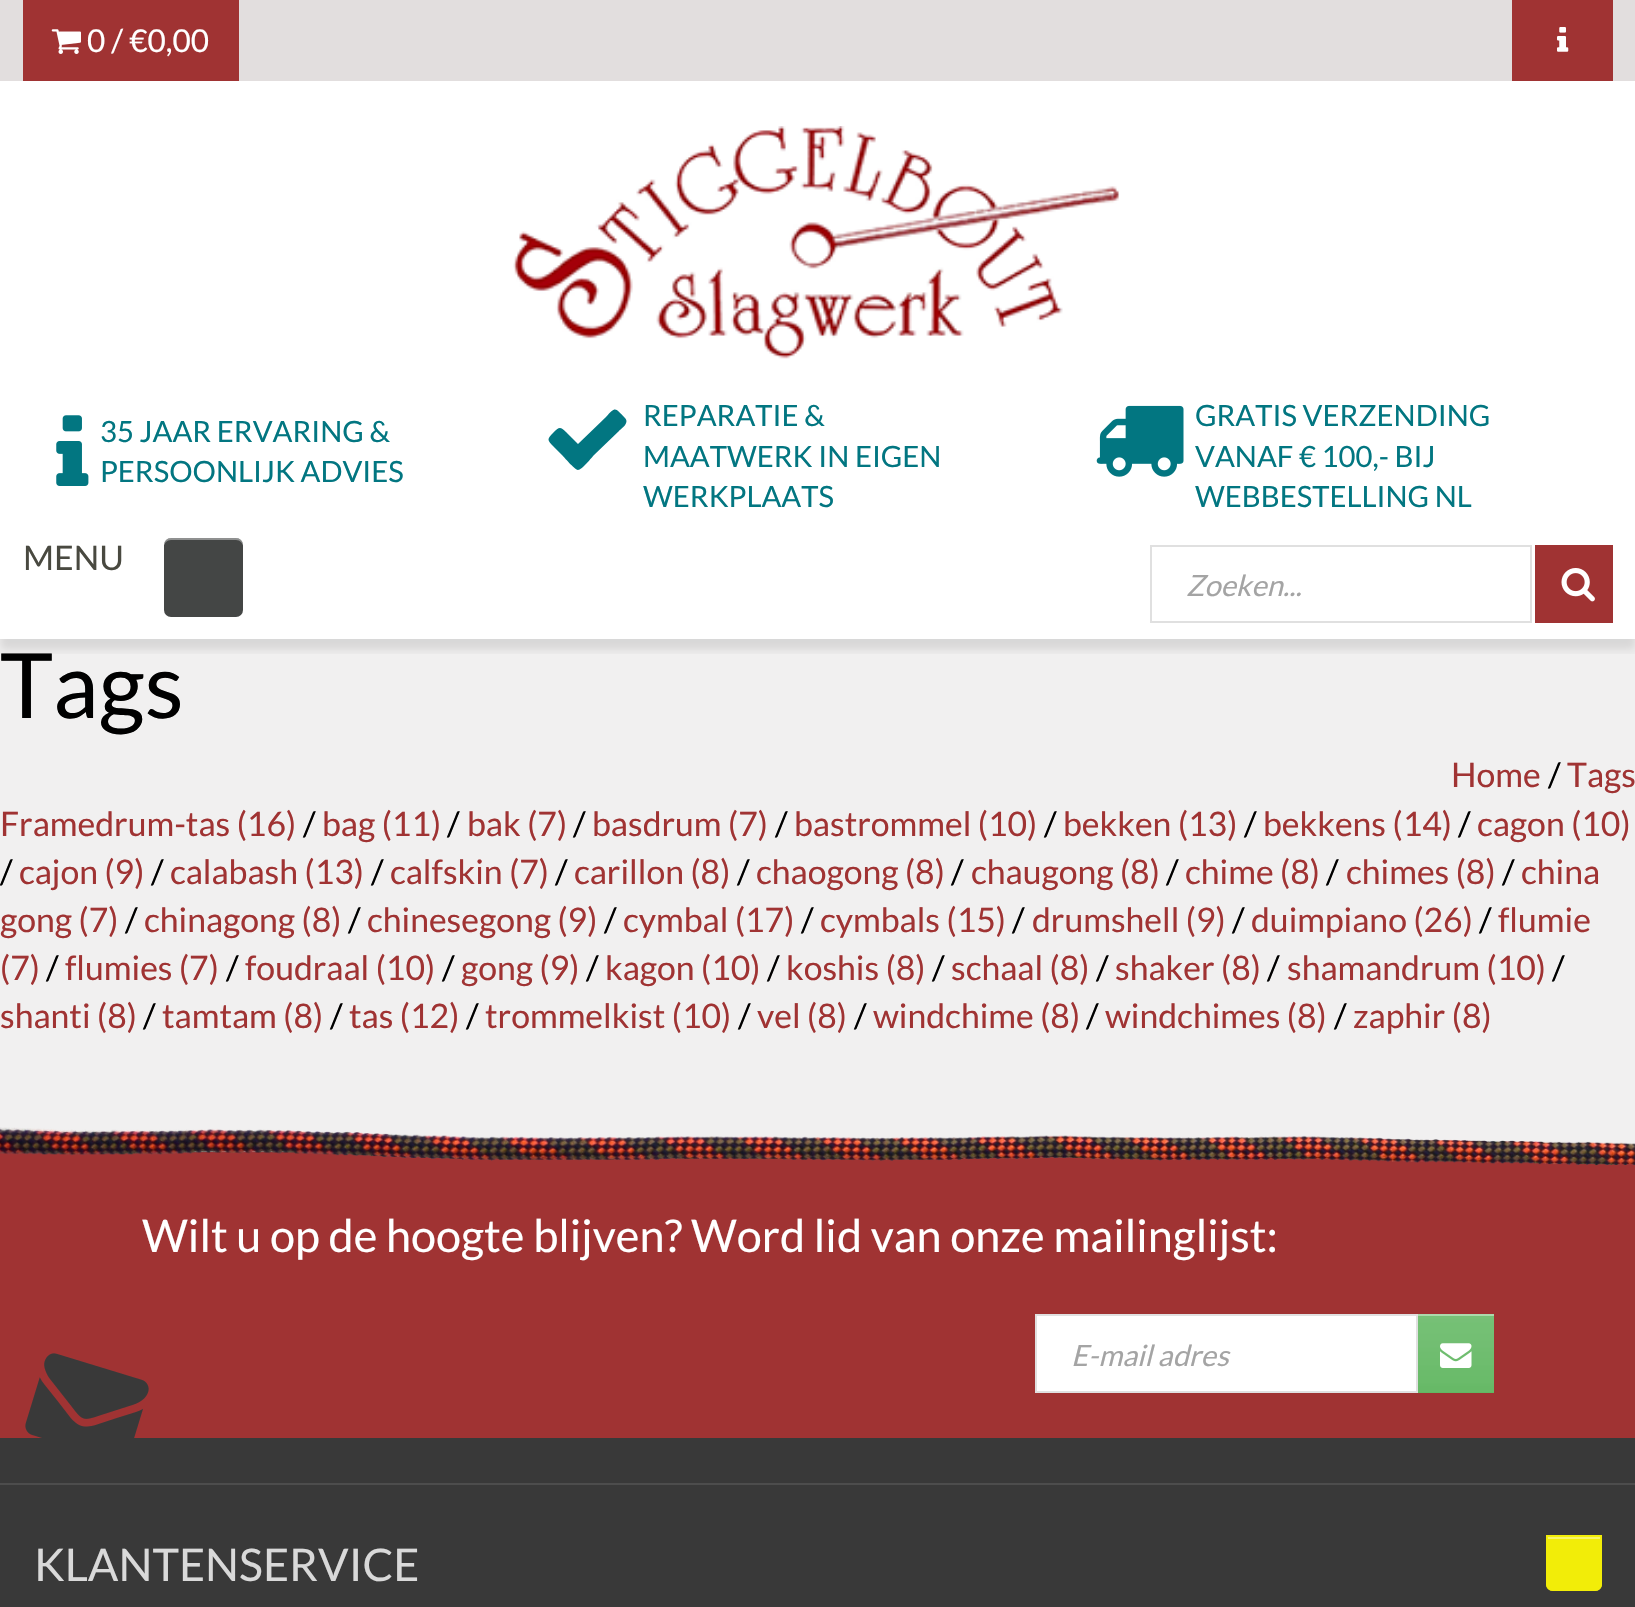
#include "include/core/SkBlurTypes.h"
#include "include/core/SkCanvas.h"
#include "include/core/SkData.h"
#include "include/core/SkFont.h"
#include "include/core/SkFontMgr.h"
#include "include/core/SkImage.h"
#include "include/core/SkMaskFilter.h"
#include "include/core/SkPaint.h"
#include "include/core/SkPathBuilder.h"
#include "include/core/SkTextBlob.h"
#include "include/effects/SkDashPathEffect.h"
#include "include/effects/SkGradientShader.h"
#include "include/utils/SkParsePath.h"

extern sk_sp<SkFontMgr> fontMgr;

static SkFont font(const char* family, int weight, float size, bool italic = false) {
    SkFontStyle style(weight, SkFontStyle::kNormal_Width,
        italic ? SkFontStyle::kItalic_Slant : SkFontStyle::kUpright_Slant);
    SkFont result(fontMgr->matchFamilyStyle(family, style), size);
    result.setSubpixel(true);
    return result;
}

static void drawLabel(SkCanvas* canvas, const char* s, float x, float y, const SkFont& font, SkColor color) {
    SkPaint ink(SkColor4f::FromColor(color));
    ink.setAntiAlias(true);
    canvas->drawString(s, x, y, font, ink);
}

static void fillRect(SkCanvas* canvas, float x, float y, float w, float h, SkColor color) {
    SkPaint ink(SkColor4f::FromColor(color));
    ink.setAntiAlias(true);
    canvas->drawRect(SkRect::MakeXYWH(x, y, w, h), ink);
}

static void fillRRect(SkCanvas* canvas, float x, float y, float w, float h, float radius, SkColor color) {
    SkPaint ink(SkColor4f::FromColor(color));
    ink.setAntiAlias(true);
    canvas->drawRoundRect(SkRect::MakeXYWH(x, y, w, h), radius, radius, ink);
}

static void drawPhoto(SkCanvas* canvas, const char* path, float x, float y, float w, float h) {
    auto image = SkImages::DeferredFromEncodedData(SkData::MakeFromFileName(path));
    canvas->drawImageRect(image, SkRect::MakeXYWH(x, y, w, h), SkSamplingOptions());
}

static SkPath parsePath(const char* data, bool evenOdd = false) {
    SkPath result = *SkParsePath::FromSVGString(data);
    if (evenOdd) result.setFillType(SkPathFillType::kEvenOdd);
    return result;
}

void draw(SkCanvas* canvas) {
    SkPaint paint;
    paint.setAntiAlias(true);
    canvas->clear(0xFFF1F0F0);
    fillRect(canvas, 0, 0, 1635, 81, 0xFFE2DEDE);
    fillRect(canvas, 23, 0, 216, 81, 0xFFA03333);
    drawPhoto(canvas, "assets/img1.png", 51, 29, 30, 25);
    SkFont font1 = font("Lato", 400, 31.5f);
    drawLabel(canvas, "0 / €0,00", 87, 52, font1, 0xFFFFFFFF);
    fillRect(canvas, 1512, 0, 101, 81, 0xFFA03333);
    drawPhoto(canvas, "assets/img2.png", 1557, 27, 12, 25);
    fillRect(canvas, 0, 81, 1635, 558, 0xFFFFFFFF);
    drawPhoto(canvas, "assets/img3.png", 513, 126, 607, 233);
    drawPhoto(canvas, "assets/img4.png", 56, 415, 33, 71);
    SkFont font2 = font("Lato", 400, 29.25f);
    drawLabel(canvas, "35 JAAR ERVARING &", 100, 442, font2, 0xFF027681);
    drawLabel(canvas, "PERSOONLIJK ADVIES", 100, 482, font2, 0xFF027681);
    paint.setColor(0xFF027681);
    canvas->drawPath(parsePath("M625 418C630 423 621 429 619 431L594 455C592 457 582 470 578 470C574 469 564 457 562 455L553 446C547 440 547 439 553 433C559 427 560 426 566 432L578 444L606 417C616 406 615 408 625 418Z"), paint);
    drawLabel(canvas, "REPARATIE &", 643, 426, font2, 0xFF027681);
    drawLabel(canvas, "MAATWERK IN EIGEN", 643, 467, font2, 0xFF027681);
    drawLabel(canvas, "WERKPLAATS", 643, 507, font2, 0xFF027681);
    drawPhoto(canvas, "assets/img5.png", 1096, 405, 88, 72);
    drawLabel(canvas, "GRATIS VERZENDING", 1195, 426, font2, 0xFF027681);
    drawLabel(canvas, "VANAF € 100,- BIJ", 1195, 467, font2, 0xFF027681);
    drawLabel(canvas, "WEBBESTELLING NL", 1195, 507, font2, 0xFF027681);
    canvas->save();
    canvas->clipRect(SkRect::MakeXYWH(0, 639, 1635, 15));
    paint.setColor(0x1A000000);
    paint.setMaskFilter(SkMaskFilter::MakeBlur(kNormal_SkBlurStyle, 4.5f));
    canvas->drawRect(SkRect::MakeXYWH(0, 540, 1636, 110), paint);
    paint.setMaskFilter(nullptr);
    canvas->restore();
    SkFont font3 = font("Lato", 400, 33.75f);
    drawLabel(canvas, "MENU", 23, 570, font3, 0xFF494940);
    fillRRect(canvas, 164, 538, 79, 79, 7, 0xFF444645);
    paint.setColor(0x66FFFFFF);
    canvas->drawPath(parsePath("M171 540H236C240 540 243 543 243 547C243 536 234 538 225 538H182C173 538 164 536 164 547C164 543 167 540 171 540Z"), paint);
    paint.setStroke(true);
    paint.setStrokeWidth(2);
    paint.setColor(0xFFE0E0E0);
    canvas->drawRect(SkRect::MakeXYWH(1151, 546, 380, 76), paint);
    SkFont font4 = font("Lato", 400, 29.25f, true);
    drawLabel(canvas, "Zoeken...", 1186, 596, font4, 0xFFA4A4A4);
    fillRect(canvas, 1535, 545, 78, 78, 0xFFA03333);
    drawPhoto(canvas, "assets/img6.png", 1561, 568, 34, 34);
    SkFont font5 = font("Lato", 400, 90);
    drawLabel(canvas, "Tags", 0, 718, font5, 0xFF000000);
    drawLabel(canvas, "Home", 1451, 787, font3, 0xFFA03333);
    drawLabel(canvas, "/", 1548, 787, font3, 0xFF000000);
    drawLabel(canvas, "Tags", 1567, 787, font3, 0xFFA03333);
    drawLabel(canvas, "Framedrum-tas (16)", 0, 836, font3, 0xFFA03333);
    drawLabel(canvas, "/", 303, 836, font3, 0xFF000000);
    drawLabel(canvas, "bag (11)", 322, 836, font3, 0xFFA03333);
    drawLabel(canvas, "/", 447, 836, font3, 0xFF000000);
    drawLabel(canvas, "bak (7)", 467, 836, font3, 0xFFA03333);
    drawLabel(canvas, "/", 573, 836, font3, 0xFF000000);
    drawLabel(canvas, "basdrum (7)", 592, 836, font3, 0xFFA03333);
    drawLabel(canvas, "/", 775, 836, font3, 0xFF000000);
    drawLabel(canvas, "bastrommel (10)", 794, 836, font3, 0xFFA03333);
    drawLabel(canvas, "/", 1044, 836, font3, 0xFF000000);
    drawLabel(canvas, "bekken (13)", 1063, 836, font3, 0xFFA03333);
    drawLabel(canvas, "/", 1244, 836, font3, 0xFF000000);
    drawLabel(canvas, "bekkens (14)", 1263, 836, font3, 0xFFA03333);
    drawLabel(canvas, "/", 1458, 836, font3, 0xFF000000);
    drawLabel(canvas, "cagon (10)", 1477, 836, font3, 0xFFA03333);
    drawLabel(canvas, "/", 0, 884, font3, 0xFF000000);
    drawLabel(canvas, "cajon (9)", 19, 884, font3, 0xFFA03333);
    drawLabel(canvas, "/", 151, 884, font3, 0xFF000000);
    drawLabel(canvas, "calabash (13)", 170, 884, font3, 0xFFA03333);
    drawLabel(canvas, "/", 371, 884, font3, 0xFF000000);
    drawLabel(canvas, "calfskin (7)", 390, 884, font3, 0xFFA03333);
    drawLabel(canvas, "/", 555, 884, font3, 0xFF000000);
    drawLabel(canvas, "carillon (8)", 574, 884, font3, 0xFFA03333);
    drawLabel(canvas, "/", 737, 884, font3, 0xFF000000);
    drawLabel(canvas, "chaogong (8)", 756, 884, font3, 0xFFA03333);
    drawLabel(canvas, "/", 951, 884, font3, 0xFF000000);
    drawLabel(canvas, "chaugong (8)", 971, 884, font3, 0xFFA03333);
    drawLabel(canvas, "/", 1166, 884, font3, 0xFF000000);
    drawLabel(canvas, "chime (8)", 1185, 884, font3, 0xFFA03333);
    drawLabel(canvas, "/", 1326, 884, font3, 0xFF000000);
    drawLabel(canvas, "chimes (8)", 1346, 884, font3, 0xFFA03333);
    drawLabel(canvas, "/", 1502, 884, font3, 0xFF000000);
    drawLabel(canvas, "china", 1521, 884, font3, 0xFFA03333);
    drawLabel(canvas, "gong (7)", 0, 932, font3, 0xFFA03333);
    drawLabel(canvas, "/", 125, 932, font3, 0xFF000000);
    drawLabel(canvas, "chinagong (8)", 144, 932, font3, 0xFFA03333);
    drawLabel(canvas, "/", 348, 932, font3, 0xFF000000);
    drawLabel(canvas, "chinesegong (9)", 367, 932, font3, 0xFFA03333);
    drawLabel(canvas, "/", 604, 932, font3, 0xFF000000);
    drawLabel(canvas, "cymbal (17)", 623, 932, font3, 0xFFA03333);
    drawLabel(canvas, "/", 801, 932, font3, 0xFF000000);
    drawLabel(canvas, "cymbals (15)", 820, 932, font3, 0xFFA03333);
    drawLabel(canvas, "/", 1012, 932, font3, 0xFF000000);
    drawLabel(canvas, "drumshell (9)", 1032, 932, font3, 0xFFA03333);
    drawLabel(canvas, "/", 1232, 932, font3, 0xFF000000);
    drawLabel(canvas, "duimpiano (26)", 1251, 932, font3, 0xFFA03333);
    drawLabel(canvas, "/", 1479, 932, font3, 0xFF000000);
    drawLabel(canvas, "flumie", 1498, 932, font3, 0xFFA03333);
    drawLabel(canvas, "(7)", 0, 980, font3, 0xFFA03333);
    drawLabel(canvas, "/", 46, 980, font3, 0xFF000000);
    drawLabel(canvas, "flumies (7)", 65, 980, font3, 0xFFA03333);
    drawLabel(canvas, "/", 226, 980, font3, 0xFF000000);
    drawLabel(canvas, "foudraal (10)", 245, 980, font3, 0xFFA03333);
    drawLabel(canvas, "/", 442, 980, font3, 0xFF000000);
    drawLabel(canvas, "gong (9)", 461, 980, font3, 0xFFA03333);
    drawLabel(canvas, "/", 586, 980, font3, 0xFF000000);
    drawLabel(canvas, "kagon (10)", 605, 980, font3, 0xFFA03333);
    drawLabel(canvas, "/", 767, 980, font3, 0xFF000000);
    drawLabel(canvas, "koshis (8)", 786, 980, font3, 0xFFA03333);
    drawLabel(canvas, "/", 932, 980, font3, 0xFF000000);
    drawLabel(canvas, "schaal (8)", 951, 980, font3, 0xFFA03333);
    drawLabel(canvas, "/", 1096, 980, font3, 0xFF000000);
    drawLabel(canvas, "shaker (8)", 1115, 980, font3, 0xFFA03333);
    drawLabel(canvas, "/", 1267, 980, font3, 0xFF000000);
    drawLabel(canvas, "shamandrum (10)", 1287, 980, font3, 0xFFA03333);
    drawLabel(canvas, "/", 1552, 980, font3, 0xFF000000);
    drawLabel(canvas, "shanti (8)", 0, 1028, font3, 0xFFA03333);
    drawLabel(canvas, "/", 143, 1028, font3, 0xFF000000);
    drawLabel(canvas, "tamtam (8)", 162, 1028, font3, 0xFFA03333);
    drawLabel(canvas, "/", 330, 1028, font3, 0xFF000000);
    drawLabel(canvas, "tas (12)", 349, 1028, font3, 0xFFA03333);
    drawLabel(canvas, "/", 466, 1028, font3, 0xFF000000);
    drawLabel(canvas, "trommelkist (10)", 485, 1028, font3, 0xFFA03333);
    drawLabel(canvas, "/", 738, 1028, font3, 0xFF000000);
    drawLabel(canvas, "vel (8)", 757, 1028, font3, 0xFFA03333);
    drawLabel(canvas, "/", 854, 1028, font3, 0xFF000000);
    drawLabel(canvas, "windchime (8)", 873, 1028, font3, 0xFFA03333);
    drawLabel(canvas, "/", 1086, 1028, font3, 0xFF000000);
    drawLabel(canvas, "windchimes (8)", 1105, 1028, font3, 0xFFA03333);
    drawLabel(canvas, "/", 1334, 1028, font3, 0xFF000000);
    drawLabel(canvas, "zaphir (8)", 1353, 1028, font3, 0xFFA03333);
    fillRect(canvas, 0, 1438, 1635, 169, 0xFF393939);
    fillRect(canvas, 0, 1152, 1635, 286, 0xFFA03333);
    drawPhoto(canvas, "assets/img7.png", 0, 1127, 1635, 39);
    SkFont font6 = font("Lato", 400, 45);
    drawLabel(canvas, "Wilt u op de hoogte blijven? Word lid van onze mailinglijst:", 142, 1252, font6, 0xFFFFFFFF);
    paint.setStroke(false);
    paint.setColor(0xFFFFFFFF);
    canvas->drawRect(SkRect::MakeXYWH(1036, 1315, 381, 77), paint);
    paint.setStroke(true);
    paint.setColor(0xFFE0E0E0);
    canvas->drawRect(SkRect::MakeXYWH(1036, 1315, 381, 77), paint);
    drawLabel(canvas, "E-mail adres", 1071, 1366, font4, 0xFFA4A4A4);
    fillRect(canvas, 1418, 1316, 76, 77, 0xFF54B154);
    drawPhoto(canvas, "assets/img8.png", 1418, 1316, 76, 77);
    fillRect(canvas, 1418, 1314, 76, 2, 0xFFACD9AC);
    drawPhoto(canvas, "assets/img9.png", 1440, 1343, 32, 25);
    drawPhoto(canvas, "assets/img10.png", 25, 1353, 124, 85);
    fillRect(canvas, 0, 1483, 1635, 2, 0xFF4D4D4D);
    drawLabel(canvas, "KLANTENSERVICE", 34, 1581, font6, 0xFFD9D9D9);
    paint.setStroke(false);
    paint.setColor(0xFFF2ED08);
    canvas->drawPath(parsePath("M1546 1535H1602V1584C1602 1588 1599 1591 1595 1591H1553C1549 1591 1546 1588 1546 1584Z"), paint);
    fillRect(canvas, 1548, 1537, 52, 2, 0xFFF7F46B);
    paint.setStroke(true);
    canvas->drawPath(parsePath("M1547 1536H1601V1584C1601 1587.5 1598.5 1590 1595 1590H1553C1549.5 1590 1547 1587.5 1547 1584Z"), paint);
}
